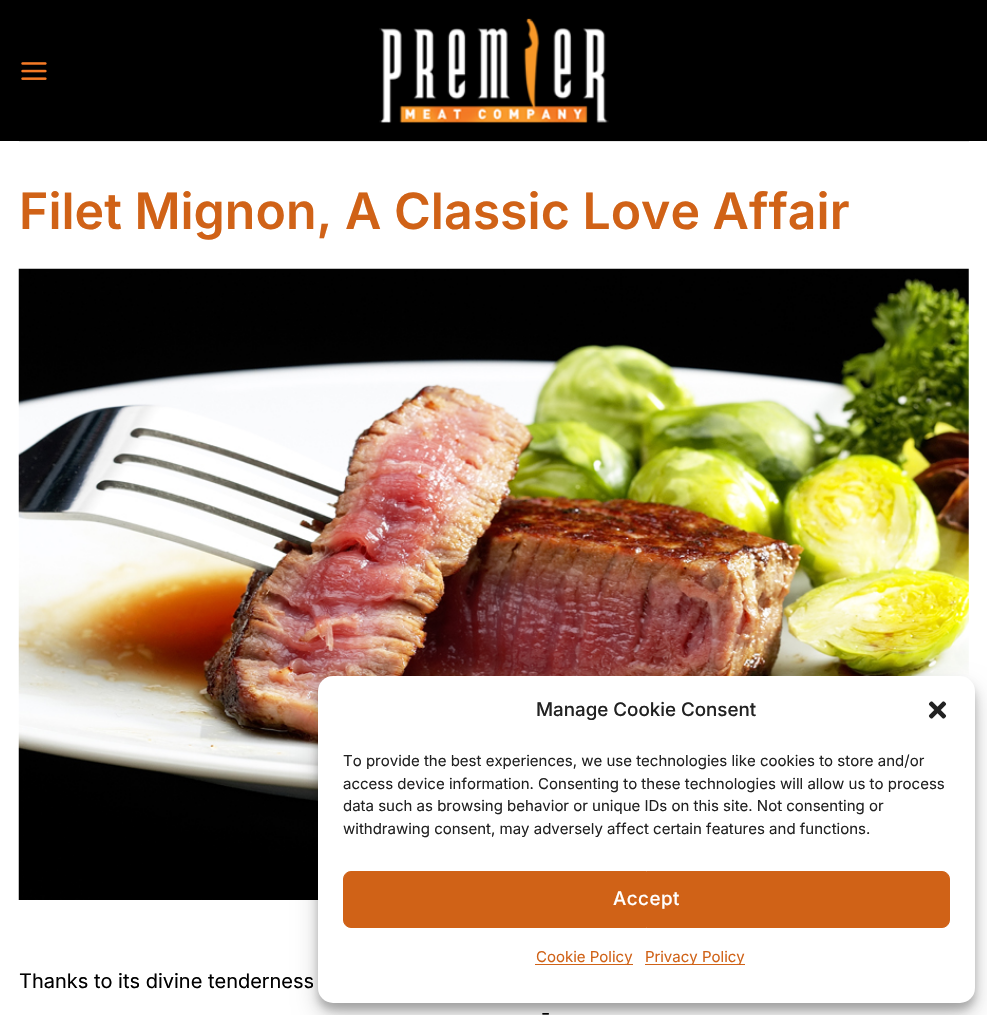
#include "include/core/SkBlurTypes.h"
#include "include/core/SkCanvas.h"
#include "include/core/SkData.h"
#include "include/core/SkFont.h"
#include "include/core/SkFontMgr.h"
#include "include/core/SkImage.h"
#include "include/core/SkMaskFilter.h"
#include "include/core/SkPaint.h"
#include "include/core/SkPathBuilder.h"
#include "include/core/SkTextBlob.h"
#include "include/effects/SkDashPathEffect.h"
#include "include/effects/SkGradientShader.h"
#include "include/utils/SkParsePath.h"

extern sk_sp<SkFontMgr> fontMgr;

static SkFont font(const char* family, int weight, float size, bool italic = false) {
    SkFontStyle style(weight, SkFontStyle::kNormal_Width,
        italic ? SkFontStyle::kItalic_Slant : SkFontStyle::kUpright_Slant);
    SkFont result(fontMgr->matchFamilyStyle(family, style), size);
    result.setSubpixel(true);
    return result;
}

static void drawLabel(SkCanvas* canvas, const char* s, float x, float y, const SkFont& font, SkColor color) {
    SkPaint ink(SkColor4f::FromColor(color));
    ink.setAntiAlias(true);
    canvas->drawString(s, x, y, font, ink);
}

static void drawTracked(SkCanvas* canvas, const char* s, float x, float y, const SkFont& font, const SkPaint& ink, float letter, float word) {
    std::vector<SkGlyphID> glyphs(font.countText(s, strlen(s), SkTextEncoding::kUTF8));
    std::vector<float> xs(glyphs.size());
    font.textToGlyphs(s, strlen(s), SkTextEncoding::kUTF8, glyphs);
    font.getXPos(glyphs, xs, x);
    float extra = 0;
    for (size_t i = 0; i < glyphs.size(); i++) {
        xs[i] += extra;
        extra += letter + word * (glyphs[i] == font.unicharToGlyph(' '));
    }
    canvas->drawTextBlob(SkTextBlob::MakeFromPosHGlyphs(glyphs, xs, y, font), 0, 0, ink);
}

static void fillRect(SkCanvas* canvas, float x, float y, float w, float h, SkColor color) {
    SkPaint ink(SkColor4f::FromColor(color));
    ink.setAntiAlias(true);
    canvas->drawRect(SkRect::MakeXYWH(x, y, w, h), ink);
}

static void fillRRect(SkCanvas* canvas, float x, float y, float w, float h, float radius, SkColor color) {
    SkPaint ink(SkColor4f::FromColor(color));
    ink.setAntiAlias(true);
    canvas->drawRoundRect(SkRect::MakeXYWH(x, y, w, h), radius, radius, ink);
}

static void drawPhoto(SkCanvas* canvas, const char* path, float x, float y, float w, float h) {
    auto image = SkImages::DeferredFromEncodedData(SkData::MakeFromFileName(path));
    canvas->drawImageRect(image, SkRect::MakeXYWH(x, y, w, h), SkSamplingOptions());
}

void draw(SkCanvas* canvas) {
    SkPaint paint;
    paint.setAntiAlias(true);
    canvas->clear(0xFFFFFFFF);
    fillRect(canvas, 0, 0, 987, 141, 0xFF000000);
    drawPhoto(canvas, "assets/img1.png", 21, 62, 26, 18);
    drawPhoto(canvas, "assets/img2.png", 379, 18, 230, 105);
    fillRect(canvas, 19, 141, 950, 1, 0xFFE6E6E6);
    SkFont font1 = font("Inter", 600, 50);
    drawLabel(canvas, "Filet Mignon, A Classic Love Affair", 19, 229, font1, 0xFFD06217);
    drawPhoto(canvas, "assets/img3.png", 18, 268, 951, 632);
    SkFont font2 = font("Inter", 400, 20);
    drawLabel(canvas, "Thanks to its divine tenderness", 19, 988, font2, 0xFF000000);
    drawLabel(canvas, "-", 541, 1020, font2, 0xFF000000);
    paint.setColor(0x3B000000);
    paint.setMaskFilter(SkMaskFilter::MakeBlur(kNormal_SkBlurStyle, 4));
    canvas->drawRoundRect(SkRect::MakeXYWH(318, 684, 657, 326), 15, 15, paint);
    paint.setMaskFilter(nullptr);
    paint.setColor(0x30000000);
    paint.setMaskFilter(SkMaskFilter::MakeBlur(kNormal_SkBlurStyle, 12.5f));
    canvas->drawRoundRect(SkRect::MakeXYWH(318, 689, 657, 326), 15, 15, paint);
    paint.setMaskFilter(nullptr);
    fillRRect(canvas, 318, 676, 657, 327, 15, 0xFFFFFFFF);
    SkFont font3 = font("Inter", 500, 18.75f);
    drawLabel(canvas, "Manage Cookie Consent", 536, 716, font3, 0xFF222222);
    drawPhoto(canvas, "assets/img4.png", 928, 701, 19, 18);
    SkFont font4 = font("Inter", 400, 15);
    drawLabel(canvas, "To provide the best experiences, we use technologies like cookies to store and/or", 343, 766, font4, 0xFF222222);
    drawLabel(canvas, "access device information. Consenting to these technologies will allow us to process", 343, 789, font4, 0xFF222222);
    drawLabel(canvas, "data such as browsing behavior or unique IDs on this site. Not consenting or", 343, 811, font4, 0xFF222222);
    drawLabel(canvas, "withdrawing consent, may adversely affect certain features and functions.", 343, 834, font4, 0xFF222222);
    paint.setColor(0xFFD06217);
    canvas->drawRoundRect(SkRect::MakeXYWH(343.5f, 871.5f, 606, 56), 7.5f, 7.5f, paint);
    paint.setStroke(true);
    paint.setStrokeWidth(1);
    canvas->drawRoundRect(SkRect::MakeXYWH(343.5f, 871.5f, 606, 56), 7.5f, 7.5f, paint);
    paint.setStroke(false);
    paint.setColor(0xFFFFFFFF);
    drawTracked(canvas, "Accept", 613, 905, font3, paint, 0.5f, 0);
    fillRect(canvas, 535, 964, 98, 1, 0xFFD06217);
    drawLabel(canvas, "Cookie Policy", 536, 962, font4, 0xFFD06217);
    fillRect(canvas, 645, 964, 100, 1, 0xFFD06217);
    drawLabel(canvas, "Privacy Policy", 645, 962, font4, 0xFFD06217);
}
